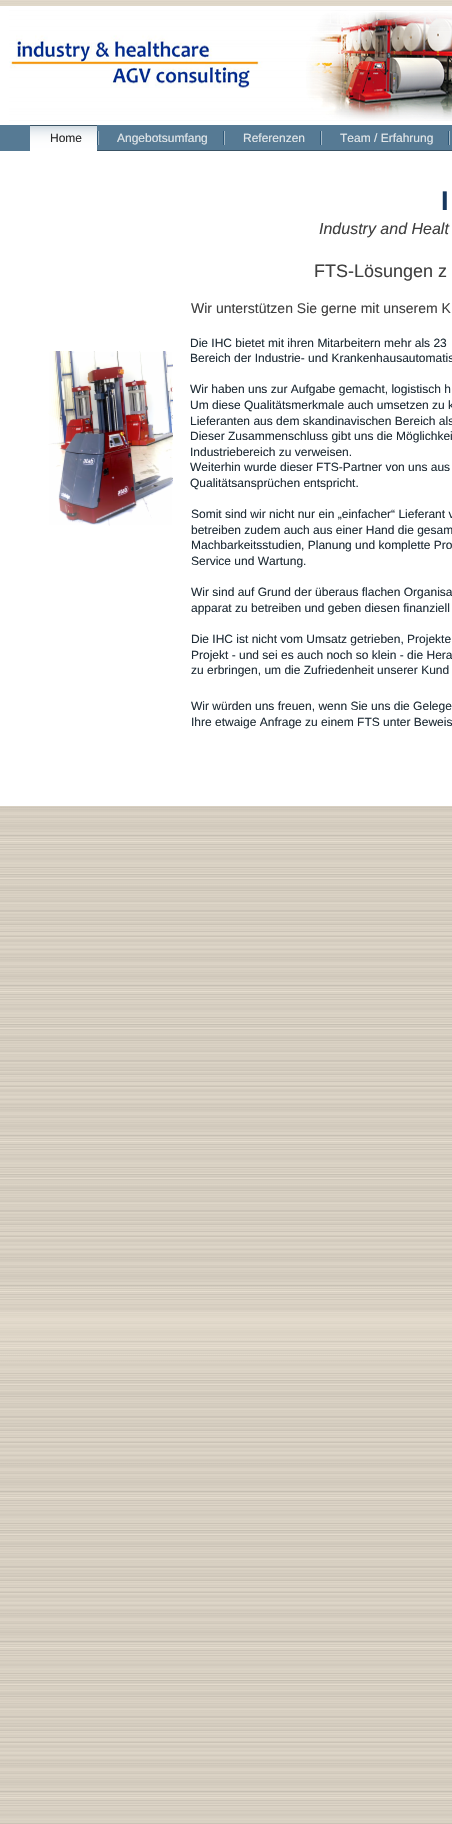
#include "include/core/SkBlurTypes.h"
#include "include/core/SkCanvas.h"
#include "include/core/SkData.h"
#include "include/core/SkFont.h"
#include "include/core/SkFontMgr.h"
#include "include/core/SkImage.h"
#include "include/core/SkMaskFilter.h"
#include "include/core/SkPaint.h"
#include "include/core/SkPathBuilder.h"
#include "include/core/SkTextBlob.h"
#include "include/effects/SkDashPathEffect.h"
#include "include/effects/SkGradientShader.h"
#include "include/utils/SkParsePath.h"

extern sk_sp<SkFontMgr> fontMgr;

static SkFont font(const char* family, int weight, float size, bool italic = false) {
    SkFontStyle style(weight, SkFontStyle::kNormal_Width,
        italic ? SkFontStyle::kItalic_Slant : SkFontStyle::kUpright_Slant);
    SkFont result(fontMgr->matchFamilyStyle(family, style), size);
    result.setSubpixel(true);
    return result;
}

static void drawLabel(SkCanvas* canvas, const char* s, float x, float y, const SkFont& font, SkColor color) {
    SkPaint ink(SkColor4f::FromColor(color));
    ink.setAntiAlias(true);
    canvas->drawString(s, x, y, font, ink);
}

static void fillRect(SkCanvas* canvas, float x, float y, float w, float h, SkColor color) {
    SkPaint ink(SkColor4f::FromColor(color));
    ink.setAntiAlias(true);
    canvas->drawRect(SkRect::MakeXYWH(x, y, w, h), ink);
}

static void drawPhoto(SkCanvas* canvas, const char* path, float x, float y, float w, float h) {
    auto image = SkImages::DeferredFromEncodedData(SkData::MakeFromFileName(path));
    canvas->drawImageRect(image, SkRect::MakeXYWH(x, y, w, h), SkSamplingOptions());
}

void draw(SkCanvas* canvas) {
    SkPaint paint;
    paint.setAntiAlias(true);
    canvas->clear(0xFFFFFFFF);
    drawPhoto(canvas, "assets/img1.png", 0, 806, 452, 1018);
    drawPhoto(canvas, "assets/img2.png", 0, 0, 452, 6);
    drawPhoto(canvas, "assets/img3.png", 9, 10, 443, 111);
    fillRect(canvas, 0, 125, 452, 26, 0xFF567A94);
    drawPhoto(canvas, "assets/img4.png", 30, 125, 67, 26);
    SkFont font1 = font("Liberation Sans", 400, 12);
    drawLabel(canvas, "Home", 50, 142, font1, 0xFF282829);
    drawPhoto(canvas, "assets/img5.png", 97, 131, 126, 20);
    drawLabel(canvas, "Angebotsumfang", 117, 142, font1, 0xFFE2E7EA);
    drawPhoto(canvas, "assets/img6.png", 223, 131, 97, 20);
    drawLabel(canvas, "Referenzen", 243, 142, font1, 0xFFE2E7EA);
    drawPhoto(canvas, "assets/img7.png", 320, 131, 128, 20);
    drawLabel(canvas, "Team / Erfahrung", 340, 142, font1, 0xFFE2E7EA);
    drawPhoto(canvas, "assets/img8.png", 448, 131, 4, 20);
    SkFont font2 = font("Liberation Sans", 700, 27);
    drawLabel(canvas, "I", 441, 210, font2, 0xFF17375E);
    SkFont font3 = font("Liberation Sans", 400, 16, true);
    drawLabel(canvas, "Industry and Healt", 319, 234, font3, 0xFF404040);
    SkFont font4 = font("Liberation Sans", 400, 18);
    drawLabel(canvas, "FTS-Lösungen z", 314, 277, font4, 0xFF404040);
    SkFont font5 = font("Liberation Sans", 400, 14);
    drawLabel(canvas, "Wir unterstützen Sie gerne mit unserem K", 191, 313, font5, 0xFF404040);
    drawLabel(canvas, "Die IHC bietet mit ihren Mitarbeitern mehr als 23", 190, 347, font1, 0xFF202D37);
    drawPhoto(canvas, "assets/img9.png", 48, 351, 125, 175);
    drawLabel(canvas, "Bereich der Industrie- und Krankenhausautomatis", 190, 362, font1, 0xFF202D37);
    drawLabel(canvas, "Wir haben uns zur Aufgabe gemacht, logistisch h", 190, 393, font1, 0xFF202D37);
    drawLabel(canvas, "Um diese Qualitätsmerkmale auch umsetzen zu k", 190, 409, font1, 0xFF202D37);
    drawLabel(canvas, "Lieferanten aus dem skandinavischen Bereich als", 190, 425, font1, 0xFF202D37);
    drawLabel(canvas, "Dieser Zusammenschluss gibt uns die Möglichkei", 190, 440, font1, 0xFF202D37);
    drawLabel(canvas, "Industriebereich zu verweisen.", 190, 456, font1, 0xFF202D37);
    drawLabel(canvas, "Weiterhin wurde dieser FTS-Partner von uns aus", 190, 471, font1, 0xFF202D37);
    drawLabel(canvas, "Qualitätsansprüchen entspricht.", 190, 487, font1, 0xFF202D37);
    drawLabel(canvas, "Somit sind wir nicht nur ein „einfacher“ Lieferant v", 191, 518, font1, 0xFF202D37);
    drawLabel(canvas, "betreiben zudem auch aus einer Hand die gesam", 191, 534, font1, 0xFF202D37);
    drawLabel(canvas, "Machbarkeitsstudien, Planung und komplette Pro", 191, 549, font1, 0xFF202D37);
    drawLabel(canvas, "Service und Wartung.", 191, 565, font1, 0xFF202D37);
    drawLabel(canvas, "Wir sind auf Grund der überaus flachen Organisa", 191, 596, font1, 0xFF202D37);
    drawLabel(canvas, "apparat zu betreiben und geben diesen finanziell", 191, 612, font1, 0xFF202D37);
    drawLabel(canvas, "Die IHC ist nicht vom Umsatz getrieben, Projekte", 191, 643, font1, 0xFF202D37);
    drawLabel(canvas, "Projekt - und sei es auch noch so klein - die Hera", 191, 659, font1, 0xFF202D37);
    drawLabel(canvas, "zu erbringen, um die Zufriedenheit unserer Kund", 191, 674, font1, 0xFF202D37);
    drawLabel(canvas, "Wir würden uns freuen, wenn Sie uns die Gelege", 191, 710, font1, 0xFF202D37);
    drawLabel(canvas, "Ihre etwaige Anfrage zu einem FTS unter Beweis", 191, 726, font1, 0xFF202D37);
}
